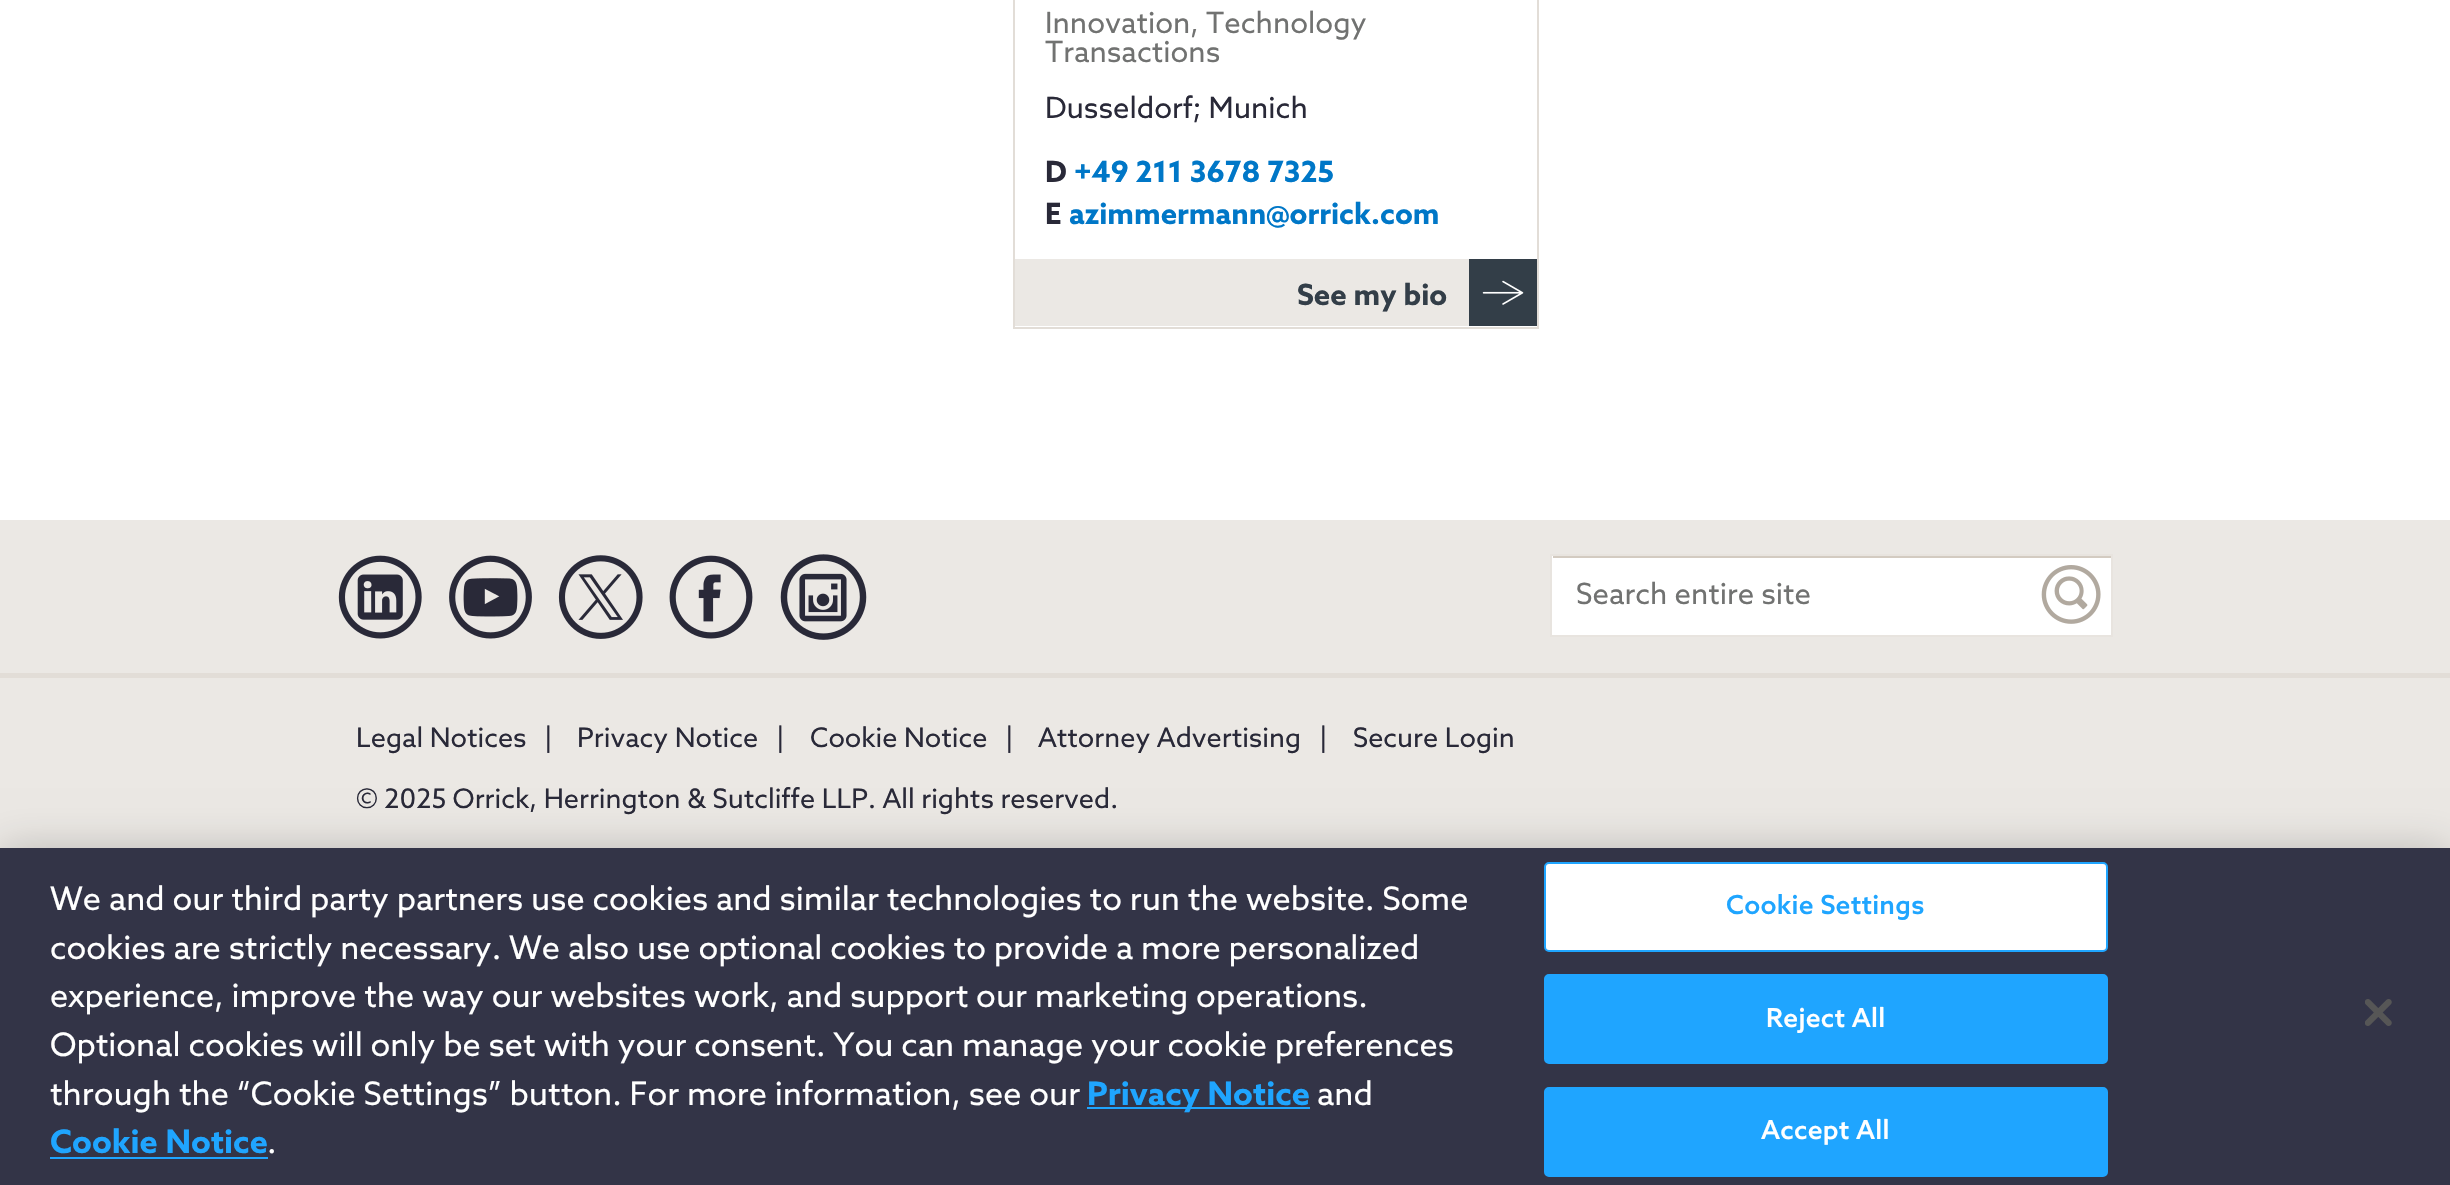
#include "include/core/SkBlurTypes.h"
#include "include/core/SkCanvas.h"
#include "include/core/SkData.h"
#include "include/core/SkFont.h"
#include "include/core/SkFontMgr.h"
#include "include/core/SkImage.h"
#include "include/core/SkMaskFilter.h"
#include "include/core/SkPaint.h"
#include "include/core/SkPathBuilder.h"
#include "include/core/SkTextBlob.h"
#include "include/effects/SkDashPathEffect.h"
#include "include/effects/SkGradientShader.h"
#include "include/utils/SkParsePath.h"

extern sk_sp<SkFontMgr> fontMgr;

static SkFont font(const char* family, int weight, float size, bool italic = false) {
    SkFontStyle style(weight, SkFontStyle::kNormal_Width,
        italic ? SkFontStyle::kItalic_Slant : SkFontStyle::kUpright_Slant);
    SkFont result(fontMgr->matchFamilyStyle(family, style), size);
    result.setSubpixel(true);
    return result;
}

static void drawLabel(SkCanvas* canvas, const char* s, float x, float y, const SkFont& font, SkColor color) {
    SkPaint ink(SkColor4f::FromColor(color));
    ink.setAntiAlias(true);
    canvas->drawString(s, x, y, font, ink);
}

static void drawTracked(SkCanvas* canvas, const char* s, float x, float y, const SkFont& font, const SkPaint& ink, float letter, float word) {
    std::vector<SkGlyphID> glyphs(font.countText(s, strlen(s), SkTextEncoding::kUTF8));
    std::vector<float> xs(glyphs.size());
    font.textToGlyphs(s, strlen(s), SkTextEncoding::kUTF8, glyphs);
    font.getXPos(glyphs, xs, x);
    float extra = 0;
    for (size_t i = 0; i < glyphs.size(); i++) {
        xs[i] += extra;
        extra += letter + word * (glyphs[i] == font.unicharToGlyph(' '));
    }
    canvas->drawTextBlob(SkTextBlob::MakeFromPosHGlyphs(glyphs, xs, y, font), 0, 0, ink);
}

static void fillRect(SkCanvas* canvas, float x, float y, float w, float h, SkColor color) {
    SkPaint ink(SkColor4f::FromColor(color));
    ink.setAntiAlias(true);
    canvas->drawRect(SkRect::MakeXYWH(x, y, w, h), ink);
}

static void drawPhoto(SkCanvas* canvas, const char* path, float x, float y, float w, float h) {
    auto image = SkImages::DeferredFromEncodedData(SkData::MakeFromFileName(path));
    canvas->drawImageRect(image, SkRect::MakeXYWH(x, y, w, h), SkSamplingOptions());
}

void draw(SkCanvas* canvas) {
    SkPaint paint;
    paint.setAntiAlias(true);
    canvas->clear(0xFFFFFFFF);
    paint.setStroke(true);
    paint.setStrokeWidth(2);
    paint.setColor(0xFFE2DDD7);
    canvas->drawRect(SkRect::MakeXYWH(1014, -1, 524, 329), paint);
    SkFont font1 = font("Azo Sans", 400, 29.25f);
    drawLabel(canvas, "Innovation, Technology", 1045, 33, font1, 0xFF717271);
    drawLabel(canvas, "Transactions", 1045, 62, font1, 0xFF717271);
    drawLabel(canvas, "Dusseldorf; Munich", 1045, 118, font1, 0xFF292938);
    SkFont font2 = font("Azo Sans", 700, 29.25f);
    drawLabel(canvas, "D", 1045, 182, font2, 0xFF292938);
    drawLabel(canvas, "+49 211 3678 7325", 1074, 182, font2, 0xFF0077C7);
    drawLabel(canvas, "E", 1045, 224, font2, 0xFF292938);
    drawLabel(canvas, "azimmermann@orrick.com", 1069, 224, font2, 0xFF0077C7);
    fillRect(canvas, 1015, 259, 454, 67, 0xFFEBE8E4);
    drawLabel(canvas, "See my bio", 1297, 305, font2, 0xFF333E48);
    fillRect(canvas, 1469, 259, 68, 67, 0xFF333E48);
    drawPhoto(canvas, "assets/img1.png", 1482, 280, 42, 25);
    fillRect(canvas, 0, 520, 2450, 328, 0xFFEBE8E4);
    fillRect(canvas, 0, 673, 2450, 5, 0xFFE2DDD7);
    drawPhoto(canvas, "assets/img2.png", 338, 555, 84, 84);
    drawPhoto(canvas, "assets/img3.png", 449, 555, 83, 84);
    drawPhoto(canvas, "assets/img4.png", 558, 555, 85, 84);
    drawPhoto(canvas, "assets/img5.png", 669, 555, 84, 84);
    drawPhoto(canvas, "assets/img6.png", 780, 554, 87, 86);
    fillRect(canvas, 1552, 556, 480, 79, 0xFFFFFFFF);
    fillRect(canvas, 1553, 556, 558, 2, 0xFFD3CBC1);
    fillRect(canvas, 1550, 554, 563, 2, 0xFFE8E4DF);
    fillRect(canvas, 1550, 635, 484, 2, 0xFFE8E4DF);
    fillRect(canvas, 1550, 554, 2, 83, 0xFFE8E4DF);
    drawLabel(canvas, "Search entire site", 1576, 604, font1, 0xFF717271);
    fillRect(canvas, 2032, 558, 79, 77, 0xFFFFFFFF);
    fillRect(canvas, 2111, 554, 2, 83, 0xFFE8E4DF);
    fillRect(canvas, 2032, 635, 81, 2, 0xFFE8E4DF);
    drawPhoto(canvas, "assets/img7.png", 2041, 565, 60, 59);
    SkFont font3 = font("Azo Sans", 400, 27);
    drawLabel(canvas, "Legal Notices", 356, 747, font3, 0xFF292938);
    drawLabel(canvas, "|", 544, 747, font3, 0xFF292938);
    drawLabel(canvas, "Privacy Notice", 577, 747, font3, 0xFF292938);
    drawLabel(canvas, "|", 776, 747, font3, 0xFF292938);
    drawLabel(canvas, "Cookie Notice", 810, 747, font3, 0xFF292938);
    drawLabel(canvas, "|", 1005, 747, font3, 0xFF292938);
    drawLabel(canvas, "Attorney Advertising", 1038, 747, font3, 0xFF292938);
    drawLabel(canvas, "|", 1319, 747, font3, 0xFF292938);
    drawLabel(canvas, "Secure Login", 1353, 747, font3, 0xFF292938);
    drawLabel(canvas, "© 2025 Orrick, Herrington & Sutcliffe LLP. All rights reserved.", 356, 808, font3, 0xFF292938);
    paint.setStroke(false);
    paint.setColor(0x33000000);
    paint.setMaskFilter(SkMaskFilter::MakeBlur(kNormal_SkBlurStyle, 20));
    canvas->drawRect(SkRect::MakeXYWH(0, 848, 2450, 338), paint);
    paint.setMaskFilter(nullptr);
    fillRect(canvas, 0, 848, 2450, 337, 0xFF333447);
    SkFont font4 = font("Azo Sans", 400, 32.4f);
    drawLabel(canvas, "We and our third party partners use cookies and similar technologies to run the website. Some", 50, 910, font4, 0xFFFFFFFF);
    drawLabel(canvas, "cookies are strictly necessary. We also use optional cookies to provide a more personalized", 50, 959, font4, 0xFFFFFFFF);
    drawLabel(canvas, "experience, improve the way our websites work, and support our marketing operations.", 50, 1007, font4, 0xFFFFFFFF);
    drawLabel(canvas, "Optional cookies will only be set with your consent. You can manage your cookie preferences", 50, 1056, font4, 0xFFFFFFFF);
    drawLabel(canvas, "through the “Cookie Settings” button. For more information, see our", 50, 1105, font4, 0xFFFFFFFF);
    fillRect(canvas, 1087, 1107, 223, 2, 0xFF1FA5FF);
    SkFont font5 = font("Azo Sans", 700, 32.4f);
    drawLabel(canvas, "Privacy Notice", 1087, 1105, font5, 0xFF1FA5FF);
    drawLabel(canvas, "and", 1317, 1105, font4, 0xFFFFFFFF);
    drawLabel(canvas, "Cookie Notice", 50, 1153, font5, 0xFF1FA5FF);
    fillRect(canvas, 50, 1157, 218, 2, 0xFF1FA5FF);
    drawLabel(canvas, ".", 267, 1153, font4, 0xFFFFFFFF);
    paint.setColor(0xFFFFFFFF);
    canvas->drawRoundRect(SkRect::MakeXYWH(1545, 863, 562, 88), 4, 4, paint);
    paint.setStroke(true);
    paint.setColor(0xFF1FA5FF);
    canvas->drawRoundRect(SkRect::MakeXYWH(1545, 863, 562, 88), 4, 4, paint);
    SkFont font6 = font("Azo Sans", 500, 26.25f);
    paint.setStroke(false);
    drawTracked(canvas, "Cookie Settings", 1726, 914, font6, paint, 0.25f, 0);
    canvas->drawRoundRect(SkRect::MakeXYWH(1545, 975, 562, 88), 4, 4, paint);
    paint.setStroke(true);
    canvas->drawRoundRect(SkRect::MakeXYWH(1545, 975, 562, 88), 4, 4, paint);
    paint.setStroke(false);
    paint.setColor(0xFFFFFFFF);
    drawTracked(canvas, "Reject All", 1766, 1027, font6, paint, 0.25f, 0);
    paint.setColor(0xFF1FA5FF);
    canvas->drawRoundRect(SkRect::MakeXYWH(1545, 1088, 562, 88), 4, 4, paint);
    paint.setStroke(true);
    canvas->drawRoundRect(SkRect::MakeXYWH(1545, 1088, 562, 88), 4, 4, paint);
    paint.setStroke(false);
    paint.setColor(0xFFFFFFFF);
    drawTracked(canvas, "Accept All", 1761, 1139, font6, paint, 0.25f, 0);
    drawPhoto(canvas, "assets/img8.png", 2365, 999, 27, 27);
}
